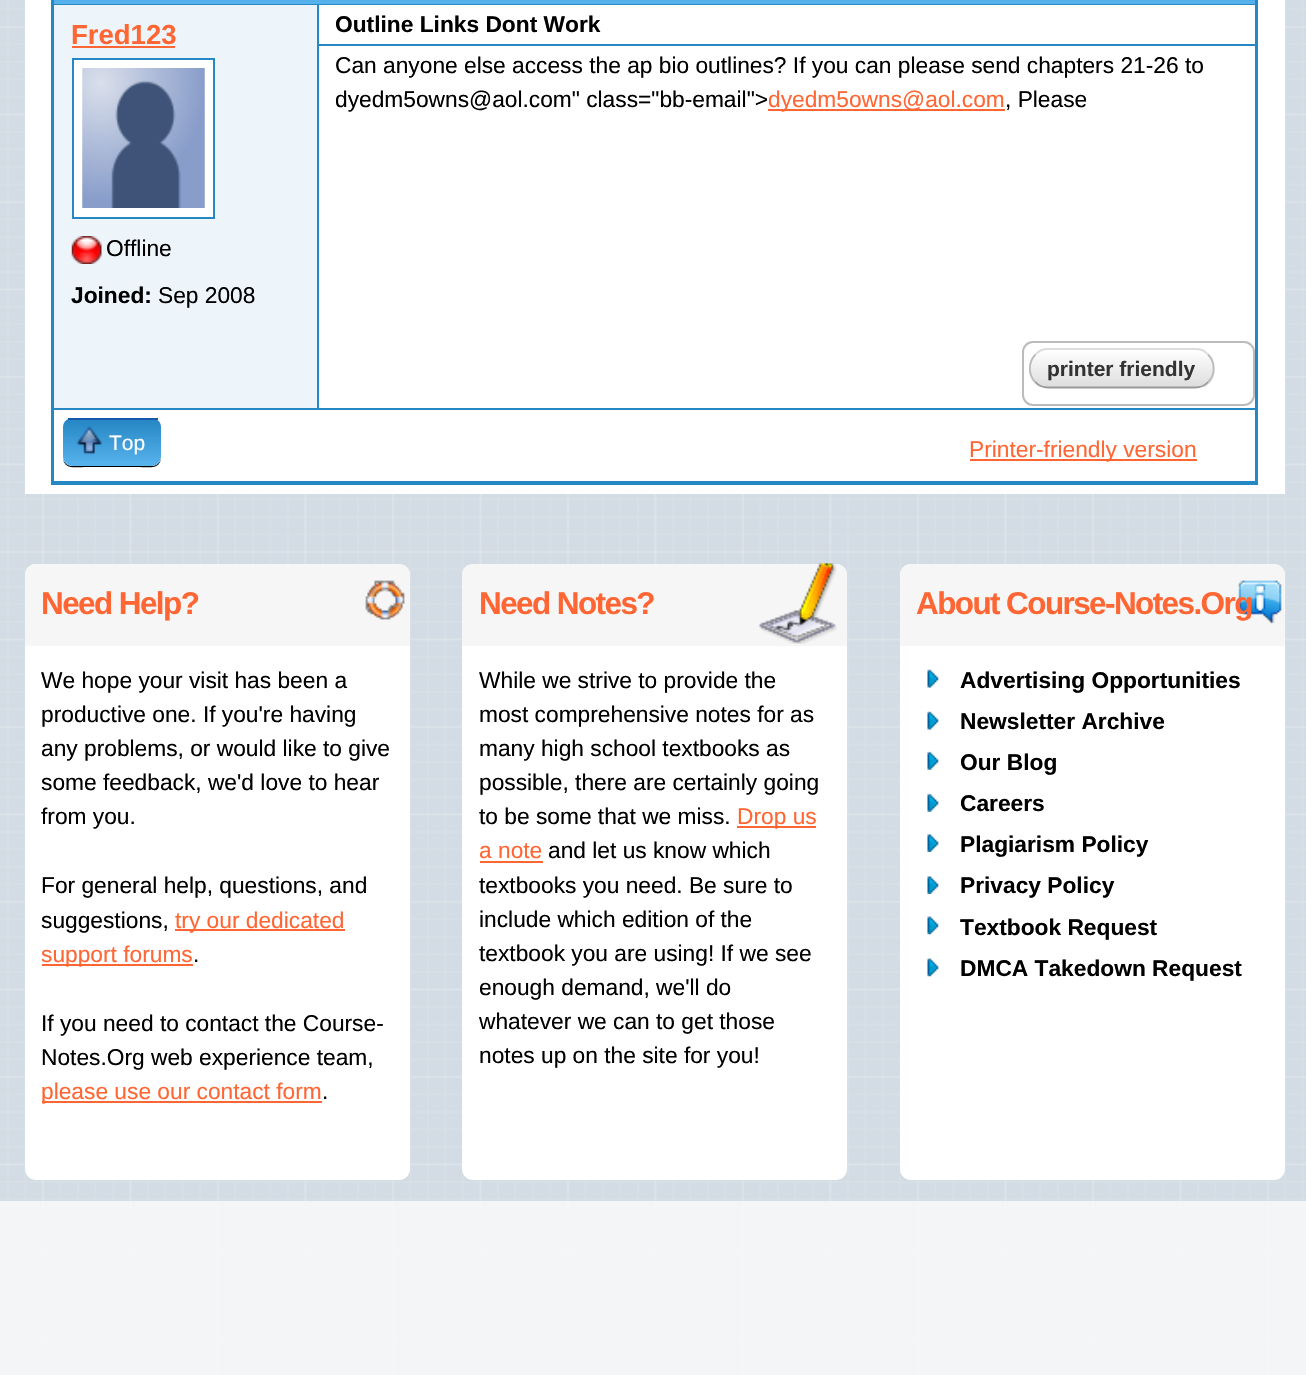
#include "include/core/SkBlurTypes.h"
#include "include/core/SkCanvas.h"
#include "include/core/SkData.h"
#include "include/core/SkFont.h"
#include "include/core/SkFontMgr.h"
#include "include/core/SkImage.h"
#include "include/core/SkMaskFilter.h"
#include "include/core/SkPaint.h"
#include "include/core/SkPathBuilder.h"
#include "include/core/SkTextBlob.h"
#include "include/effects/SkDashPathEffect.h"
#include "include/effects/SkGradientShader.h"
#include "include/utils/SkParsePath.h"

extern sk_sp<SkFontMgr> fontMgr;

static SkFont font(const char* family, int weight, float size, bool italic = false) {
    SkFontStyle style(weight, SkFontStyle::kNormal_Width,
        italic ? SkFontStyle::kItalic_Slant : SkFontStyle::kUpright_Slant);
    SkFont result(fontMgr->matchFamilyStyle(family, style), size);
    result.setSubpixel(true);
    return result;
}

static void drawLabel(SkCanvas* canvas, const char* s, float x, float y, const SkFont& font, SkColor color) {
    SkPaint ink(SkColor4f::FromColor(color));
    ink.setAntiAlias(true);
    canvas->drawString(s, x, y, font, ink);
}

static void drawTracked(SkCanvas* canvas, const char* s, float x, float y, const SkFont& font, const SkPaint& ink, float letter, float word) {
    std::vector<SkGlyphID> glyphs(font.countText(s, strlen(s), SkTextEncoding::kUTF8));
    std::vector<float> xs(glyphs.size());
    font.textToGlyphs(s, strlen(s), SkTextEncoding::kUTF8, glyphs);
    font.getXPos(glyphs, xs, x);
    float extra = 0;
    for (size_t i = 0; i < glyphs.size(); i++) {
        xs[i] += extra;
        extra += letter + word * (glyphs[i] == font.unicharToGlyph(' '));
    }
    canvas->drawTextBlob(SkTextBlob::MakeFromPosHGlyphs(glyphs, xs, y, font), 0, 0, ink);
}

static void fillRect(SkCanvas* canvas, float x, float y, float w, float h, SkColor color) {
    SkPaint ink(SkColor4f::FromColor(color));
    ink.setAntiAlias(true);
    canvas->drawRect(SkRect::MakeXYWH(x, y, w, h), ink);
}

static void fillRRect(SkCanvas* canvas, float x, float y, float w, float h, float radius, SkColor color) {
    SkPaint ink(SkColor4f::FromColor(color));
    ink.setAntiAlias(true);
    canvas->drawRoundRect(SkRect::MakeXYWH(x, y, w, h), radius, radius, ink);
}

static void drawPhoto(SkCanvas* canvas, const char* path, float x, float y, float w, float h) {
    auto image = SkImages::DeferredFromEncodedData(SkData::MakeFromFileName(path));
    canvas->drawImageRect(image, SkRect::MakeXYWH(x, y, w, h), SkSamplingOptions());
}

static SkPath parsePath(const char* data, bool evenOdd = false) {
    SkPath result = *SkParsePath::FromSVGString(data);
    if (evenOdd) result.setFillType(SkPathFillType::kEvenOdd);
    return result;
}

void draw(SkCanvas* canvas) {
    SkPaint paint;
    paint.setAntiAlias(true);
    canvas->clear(0xFFFFFFFF);
    drawPhoto(canvas, "assets/img1.png", 0, 0, 1306, 1375);
    fillRect(canvas, 25, 0, 1260, 494, 0xFFFFFFFF);
    paint.setStroke(true);
    paint.setStrokeWidth(4);
    paint.setColor(0xFF2587C4);
    canvas->drawRect(SkRect::MakeXYWH(53, -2, 1203, 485), paint);
    paint.setStroke(false);
    {
        const SkColor colors[] = {0xFF2587C4, 0xFF58B3ED};
        const float stops[] = {0, 1};
        const SkPoint ends[] = {{54, -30}, {54, 3.5f}};
        paint.setShader(SkGradientShader::MakeLinear(ends, colors, stops, 2, SkTileMode::kClamp));
        paint.setAlpha(255);
    }
    canvas->drawRect(SkRect::MakeXYWH(54, 0, 1201, 4), paint);
    fillRect(canvas, 54, 4, 1201, 1, 0xFF2587C4);
    fillRect(canvas, 54, 5, 263, 403, 0xFFEDF5FA);
    SkFont font1 = font("Liberation Sans", 700, 27.5f);
    drawLabel(canvas, "Fred123", 71, 44, font1, 0xFFFF6633);
    fillRect(canvas, 72, 46, 103, 2, 0xFFFF6633);
    paint.setShader(nullptr);
    paint.setColor(0xFFFFFFFF);
    canvas->drawRect(SkRect::MakeXYWH(73, 59, 141, 159), paint);
    paint.setStroke(true);
    paint.setStrokeWidth(2);
    paint.setColor(0xFF2587C4);
    canvas->drawRect(SkRect::MakeXYWH(73, 59, 141, 159), paint);
    drawPhoto(canvas, "assets/img2.png", 82, 68, 123, 140);
    drawPhoto(canvas, "assets/img3.png", 71, 236, 31, 28);
    SkFont font2 = font("Liberation Sans", 400, 22.75f);
    drawLabel(canvas, "Offline", 106, 256, font2, 0xFF000000);
    SkFont font3 = font("Liberation Sans", 700, 22.75f);
    drawLabel(canvas, "Joined:", 71, 303, font3, 0xFF000000);
    drawLabel(canvas, "Sep 2008", 158, 303, font2, 0xFF000000);
    fillRect(canvas, 1254, 5, 1, 403, 0xFFFFFFFF);
    fillRect(canvas, 317, 5, 2, 403, 0xFF2587C4);
    fillRect(canvas, 319, 44, 936, 2, 0xFF2587C4);
    drawLabel(canvas, "Outline Links Dont Work", 335, 32, font3, 0xFF000000);
    drawLabel(canvas, "Can anyone else access the ap bio outlines? If you can please send chapters 21-26 to", 335, 73, font2, 0xFF000000);
    drawLabel(canvas, "dyedm5owns@aol.com\" class=\"bb-email\">", 335, 107, font2, 0xFF000000);
    fillRect(canvas, 768, 109, 237, 2, 0xFFFF6633);
    drawLabel(canvas, "dyedm5owns@aol.com", 768, 107, font2, 0xFFFF6633);
    drawLabel(canvas, ", Please", 1005, 107, font2, 0xFF000000);
    paint.setColor(0xFFBBBBBB);
    canvas->drawRoundRect(SkRect::MakeXYWH(1023, 342, 231, 63), 10, 10, paint);
    canvas->save();
    canvas->clipPath(parsePath("M1048 348H1196C1206.5 348 1215 356.5 1215 367V370C1215 380.5 1206.5 389 1196 389H1048C1037.5 389 1029 380.5 1029 370V367C1029 356.5 1037.5 348 1048 348Z"), true);
    paint.setStroke(false);
    {
        const SkColor colors[] = {0xFFFFFFFF, 0xFFDDDDDD};
        const float stops[] = {0, 1};
        const SkPoint ends[] = {{1031, 313}, {1031, 350}};
        paint.setShader(SkGradientShader::MakeLinear(ends, colors, stops, 2, SkTileMode::kClamp));
        paint.setAlpha(255);
    }
    canvas->drawRect(SkRect::MakeXYWH(1039, 348, 166, 2), paint);
    {
        const SkColor colors[] = {0xFFFFFFFF, 0xFFDDDDDD};
        const float stops[] = {0, 1};
        const SkPoint ends[] = {{1031, 350}, {1031, 387}};
        paint.setShader(SkGradientShader::MakeLinear(ends, colors, stops, 2, SkTileMode::kClamp));
        paint.setAlpha(255);
    }
    canvas->drawRect(SkRect::MakeXYWH(1029, 350, 186, 37), paint);
    canvas->restore();
    paint.setStroke(true);
    paint.setStrokeWidth(1.8f);
    paint.setShader(nullptr);
    paint.setColor(0xFFDDDDDD);
    canvas->drawPath(parsePath("M1035.5 354.5C1038.5 351 1043.5 349 1048 349H1195C1200 349 1205 351 1208 354.5"), paint);
    paint.setColor(0xFFBBBBBB);
    canvas->drawPath(parsePath("M1208 354.5C1215.5 362 1215.5 375 1208 382"), paint);
    paint.setColor(0xFF999999);
    canvas->drawPath(parsePath("M1208 382C1205 385.5 1200 387.5 1195 387.5H1048C1043.5 387.5 1038.5 385.5 1035.5 382"), paint);
    paint.setColor(0xFFBBBBBB);
    canvas->drawPath(parsePath("M1035.5 382C1028 375 1028 362 1035.5 354.5"), paint);
    SkFont font4 = font("Liberation Sans", 700, 21);
    drawLabel(canvas, "printer friendly", 1047, 376, font4, 0xFF333333);
    fillRect(canvas, 54, 410, 1201, 71, 0xFFFFFFFF);
    fillRect(canvas, 54, 408, 1201, 2, 0xFF2587C4);
    paint.setStroke(false);
    paint.setColor(0xFF000000);
    canvas->drawPath(parsePath("M63 457C63 470 76 467 85 467H139C148 467 161 470 161 457C161 462 157 466 152 466H72C67 466 63 462 63 457Z"), paint);
    canvas->save();
    canvas->clipPath(parsePath("M72 418H152C157 418 161 422 161 427V457C161 462 157 466 152 466H72C67 466 63 462 63 457V427C63 422 67 418 72 418Z"), true);
    {
        const SkColor colors[] = {0xFF2587C4, 0xFF58B3ED};
        const float stops[] = {0, 1};
        const SkPoint ends[] = {{63, 375}, {63, 420}};
        paint.setShader(SkGradientShader::MakeLinear(ends, colors, stops, 2, SkTileMode::kClamp));
        paint.setAlpha(255);
    }
    canvas->drawRect(SkRect::MakeXYWH(63, 419, 5, 1), paint);
    {
        const SkColor colors[] = {0xFF2587C4, 0xFF58B3ED};
        const float stops[] = {0, 1};
        const SkPoint ends[] = {{63, 420}, {63, 466}};
        paint.setShader(SkGradientShader::MakeLinear(ends, colors, stops, 2, SkTileMode::kClamp));
        paint.setAlpha(255);
    }
    canvas->drawPath(parsePath("M63 420H161V457C161 462 157 466 152 466H72C67 466 63 462 63 457Z"), paint);
    canvas->restore();
    fillRect(canvas, 68, 418, 90, 2, 0xFF1659AC);
    drawPhoto(canvas, "assets/img4.png", 76, 426, 26, 29);
    SkFont font5 = font("Liberation Sans", 400, 21);
    drawLabel(canvas, "Top", 109, 450, font5, 0xFFFFFFFF);
    fillRect(canvas, 970, 459, 227, 2, 0xFFFF6633);
    drawLabel(canvas, "Printer-friendly version", 969, 457, font2, 0xFFFF6633);
    fillRRect(canvas, 25, 564, 385, 616, 11, 0xFFFFFFFF);
    paint.setShader(nullptr);
    paint.setColor(0xFFF6F6F6);
    canvas->drawPath(parsePath("M36 564H399C405 564 410 569 410 575V646H25V575C25 569 30 564 36 564Z"), paint);
    drawPhoto(canvas, "assets/img5.png", 365, 580, 40, 40);
    SkFont font6 = font("Liberation Sans", 700, 31.5f);
    paint.setColor(0xFFFF6633);
    drawTracked(canvas, "Need Help?", 41, 614, font6, paint, -1.6f, 0);
    drawLabel(canvas, "We hope your visit has been a", 41, 688, font2, 0xFF000000);
    drawLabel(canvas, "productive one. If you're having", 41, 722, font2, 0xFF000000);
    drawLabel(canvas, "any problems, or would like to give", 41, 756, font2, 0xFF000000);
    drawLabel(canvas, "some feedback, we'd love to hear", 41, 790, font2, 0xFF000000);
    drawLabel(canvas, "from you.", 41, 824, font2, 0xFF000000);
    drawLabel(canvas, "For general help, questions, and", 41, 893, font2, 0xFF000000);
    drawLabel(canvas, "suggestions,", 41, 928, font2, 0xFF000000);
    fillRect(canvas, 175, 929, 170, 2, 0xFFFF6633);
    drawLabel(canvas, "try our dedicated", 175, 928, font2, 0xFFFF6633);
    fillRect(canvas, 42, 964, 151, 2, 0xFFFF6633);
    drawLabel(canvas, "support forums", 41, 962, font2, 0xFFFF6633);
    drawLabel(canvas, ".", 193, 962, font2, 0xFF000000);
    drawLabel(canvas, "If you need to contact the Course-", 41, 1031, font2, 0xFF000000);
    drawLabel(canvas, "Notes.Org web experience team,", 41, 1065, font2, 0xFF000000);
    fillRect(canvas, 42, 1101, 280, 2, 0xFFFF6633);
    drawLabel(canvas, "please use our contact form", 41, 1099, font2, 0xFFFF6633);
    drawLabel(canvas, ".", 322, 1099, font2, 0xFF000000);
    fillRRect(canvas, 462, 564, 385, 616, 11, 0xFFFFFFFF);
    paint.setColor(0xFFF6F6F6);
    canvas->drawPath(parsePath("M473 564H836C842 564 847 569 847 575V646H462V575C462 569 467 564 473 564Z"), paint);
    drawPhoto(canvas, "assets/img6.png", 759, 563, 78, 81);
    paint.setColor(0xFFFF6633);
    drawTracked(canvas, "Need Notes?", 479, 614, font6, paint, -1.6f, 0);
    drawLabel(canvas, "While we strive to provide the", 479, 688, font2, 0xFF000000);
    drawLabel(canvas, "most comprehensive notes for as", 479, 722, font2, 0xFF000000);
    drawLabel(canvas, "many high school textbooks as", 479, 756, font2, 0xFF000000);
    drawLabel(canvas, "possible, there are certainly going", 479, 790, font2, 0xFF000000);
    drawLabel(canvas, "to be some that we miss.", 479, 824, font2, 0xFF000000);
    fillRect(canvas, 737, 826, 79, 2, 0xFFFF6633);
    drawLabel(canvas, "Drop us", 737, 824, font2, 0xFFFF6633);
    drawLabel(canvas, "a note", 479, 858, font2, 0xFFFF6633);
    fillRect(canvas, 480, 861, 63, 2, 0xFFFF6633);
    drawLabel(canvas, "and let us know which", 548, 858, font2, 0xFF000000);
    drawLabel(canvas, "textbooks you need. Be sure to", 479, 893, font2, 0xFF000000);
    drawLabel(canvas, "include which edition of the", 479, 927, font2, 0xFF000000);
    drawLabel(canvas, "textbook you are using! If we see", 479, 961, font2, 0xFF000000);
    drawLabel(canvas, "enough demand, we'll do", 479, 995, font2, 0xFF000000);
    drawLabel(canvas, "whatever we can to get those", 479, 1029, font2, 0xFF000000);
    drawLabel(canvas, "notes up on the site for you!", 479, 1063, font2, 0xFF000000);
    fillRRect(canvas, 900, 564, 385, 616, 11, 0xFFFFFFFF);
    paint.setColor(0xFFF6F6F6);
    canvas->drawPath(parsePath("M911 564H1274C1280 564 1285 569 1285 575V646H900V575C900 569 905 564 911 564Z"), paint);
    drawPhoto(canvas, "assets/img7.png", 1238, 580, 44, 44);
    paint.setColor(0xFFFF6633);
    drawTracked(canvas, "About Course-Notes.Org", 916, 614, font6, paint, -1.6f, 0);
    drawPhoto(canvas, "assets/img8.png", 927, 669, 12, 19);
    drawLabel(canvas, "Advertising Opportunities", 960, 688, font3, 0xFF000000);
    drawPhoto(canvas, "assets/img8.png", 927, 711, 12, 19);
    drawLabel(canvas, "Newsletter Archive", 960, 729, font3, 0xFF000000);
    drawPhoto(canvas, "assets/img9.png", 927, 751, 12, 19);
    drawLabel(canvas, "Our Blog", 960, 770, font3, 0xFF000000);
    drawPhoto(canvas, "assets/img9.png", 927, 793, 12, 19);
    drawLabel(canvas, "Careers", 960, 811, font3, 0xFF000000);
    drawPhoto(canvas, "assets/img10.png", 927, 834, 12, 18);
    drawLabel(canvas, "Plagiarism Policy", 960, 852, font3, 0xFF000000);
    drawPhoto(canvas, "assets/img10.png", 927, 876, 12, 18);
    drawLabel(canvas, "Privacy Policy", 960, 893, font3, 0xFF000000);
    drawPhoto(canvas, "assets/img11.png", 927, 916, 12, 19);
    drawLabel(canvas, "Textbook Request", 960, 935, font3, 0xFF000000);
    drawPhoto(canvas, "assets/img11.png", 927, 958, 12, 19);
    drawLabel(canvas, "DMCA Takedown Request", 960, 976, font3, 0xFF000000);
    fillRect(canvas, 0, 1201, 1306, 174, 0xE6F7F7F7);
}
